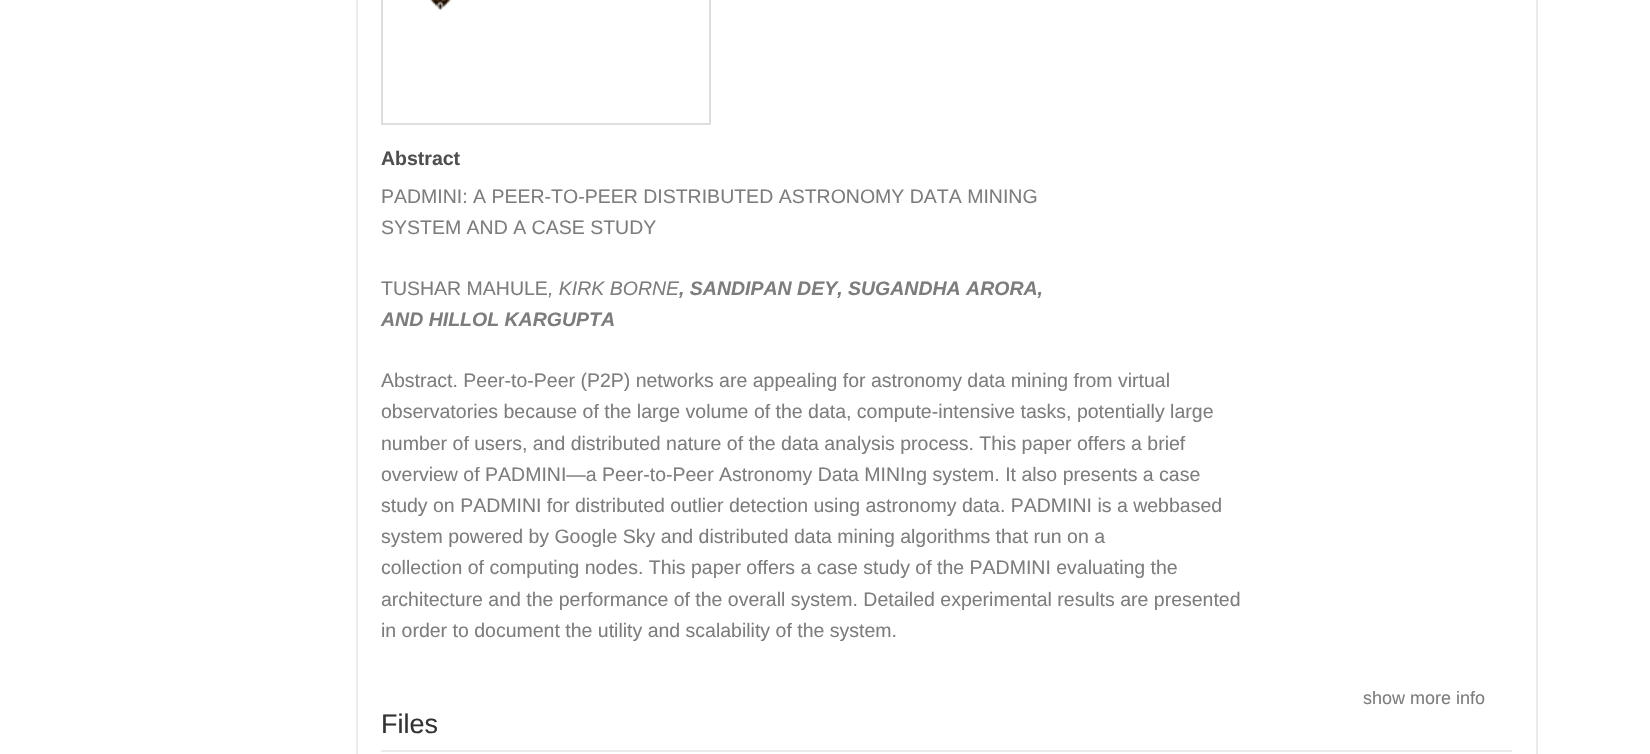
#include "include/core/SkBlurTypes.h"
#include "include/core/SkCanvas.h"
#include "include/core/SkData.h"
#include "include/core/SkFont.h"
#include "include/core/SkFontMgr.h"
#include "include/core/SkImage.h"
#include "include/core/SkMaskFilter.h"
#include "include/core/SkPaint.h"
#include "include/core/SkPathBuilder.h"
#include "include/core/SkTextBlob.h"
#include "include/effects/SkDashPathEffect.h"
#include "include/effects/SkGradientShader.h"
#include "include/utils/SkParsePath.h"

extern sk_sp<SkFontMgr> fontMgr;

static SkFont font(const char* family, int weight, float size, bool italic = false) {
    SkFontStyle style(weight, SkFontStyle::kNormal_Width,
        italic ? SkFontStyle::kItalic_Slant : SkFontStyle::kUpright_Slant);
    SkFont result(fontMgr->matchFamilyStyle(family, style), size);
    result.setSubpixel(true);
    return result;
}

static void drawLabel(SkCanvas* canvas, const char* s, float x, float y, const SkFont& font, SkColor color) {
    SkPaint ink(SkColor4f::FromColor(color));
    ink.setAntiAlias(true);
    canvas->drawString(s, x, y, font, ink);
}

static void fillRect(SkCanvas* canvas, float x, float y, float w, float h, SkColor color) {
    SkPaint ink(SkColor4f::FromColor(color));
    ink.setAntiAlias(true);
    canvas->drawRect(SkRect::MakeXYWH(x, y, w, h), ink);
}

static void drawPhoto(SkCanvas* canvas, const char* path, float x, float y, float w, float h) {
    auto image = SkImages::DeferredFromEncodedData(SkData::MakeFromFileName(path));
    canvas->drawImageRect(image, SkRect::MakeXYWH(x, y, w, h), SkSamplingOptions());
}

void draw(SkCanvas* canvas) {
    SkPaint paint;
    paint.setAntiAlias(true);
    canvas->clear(0xFFFFFFFF);
    paint.setStroke(true);
    paint.setStrokeWidth(2);
    paint.setColor(0xFFEBEBEB);
    canvas->drawRect(SkRect::MakeXYWH(357, -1, 1180, 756), paint);
    paint.setColor(0xFFDEDEDE);
    canvas->drawRect(SkRect::MakeXYWH(382, -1, 328, 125), paint);
    drawPhoto(canvas, "assets/img1.png", 430, 0, 22, 11);
    SkFont font1 = font("Liberation Sans", 700, 19.5f);
    drawLabel(canvas, "Abstract", 381, 165, font1, 0xFF4F4F4F);
    SkFont font2 = font("Liberation Sans", 400, 19.5f);
    drawLabel(canvas, "PADMINI: A PEER-TO-PEER DISTRIBUTED ASTRONOMY DATA MINING", 381, 203, font2, 0xFF7D7D7D);
    drawLabel(canvas, "SYSTEM AND A CASE STUDY", 381, 234, font2, 0xFF7D7D7D);
    drawLabel(canvas, "TUSHAR MAHULE", 381, 295, font2, 0xFF7D7D7D);
    SkFont font3 = font("Liberation Sans", 400, 19.5f, true);
    drawLabel(canvas, ", KIRK BORNE", 548, 295, font3, 0xFF7D7D7D);
    SkFont font4 = font("Liberation Sans", 700, 19.5f, true);
    drawLabel(canvas, ", SANDIPAN DEY, SUGANDHA ARORA,", 679, 295, font4, 0xFF7D7D7D);
    drawLabel(canvas, "AND HILLOL KARGUPTA", 381, 326, font4, 0xFF7D7D7D);
    drawLabel(canvas, "Abstract. Peer-to-Peer (P2P) networks are appealing for astronomy data mining from virtual", 381, 387, font2, 0xFF7D7D7D);
    drawLabel(canvas, "observatories because of the large volume of the data, compute-intensive tasks, potentially large", 381, 418, font2, 0xFF7D7D7D);
    drawLabel(canvas, "number of users, and distributed nature of the data analysis process. This paper offers a brief", 381, 450, font2, 0xFF7D7D7D);
    drawLabel(canvas, "overview of PADMINI—a Peer-to-Peer Astronomy Data MINIng system. It also presents a case", 381, 481, font2, 0xFF7D7D7D);
    drawLabel(canvas, "study on PADMINI for distributed outlier detection using astronomy data. PADMINI is a webbased", 381, 512, font2, 0xFF7D7D7D);
    drawLabel(canvas, "system powered by Google Sky and distributed data mining algorithms that run on a", 381, 543, font2, 0xFF7D7D7D);
    drawLabel(canvas, "collection of computing nodes. This paper offers a case study of the PADMINI evaluating the", 381, 574, font2, 0xFF7D7D7D);
    drawLabel(canvas, "architecture and the performance of the overall system. Detailed experimental results are presented", 381, 606, font2, 0xFF7D7D7D);
    drawLabel(canvas, "in order to document the utility and scalability of the system.", 381, 637, font2, 0xFF7D7D7D);
    SkFont font5 = font("Liberation Sans", 400, 18);
    drawLabel(canvas, "show more info", 1363, 704, font5, 0xFF7D7D7D);
    fillRect(canvas, 381, 750, 1131, 2, 0xFFEBEBEB);
    SkFont font6 = font("Liberation Sans", 400, 27);
    drawLabel(canvas, "Files", 381, 733, font6, 0xFF333333);
}
